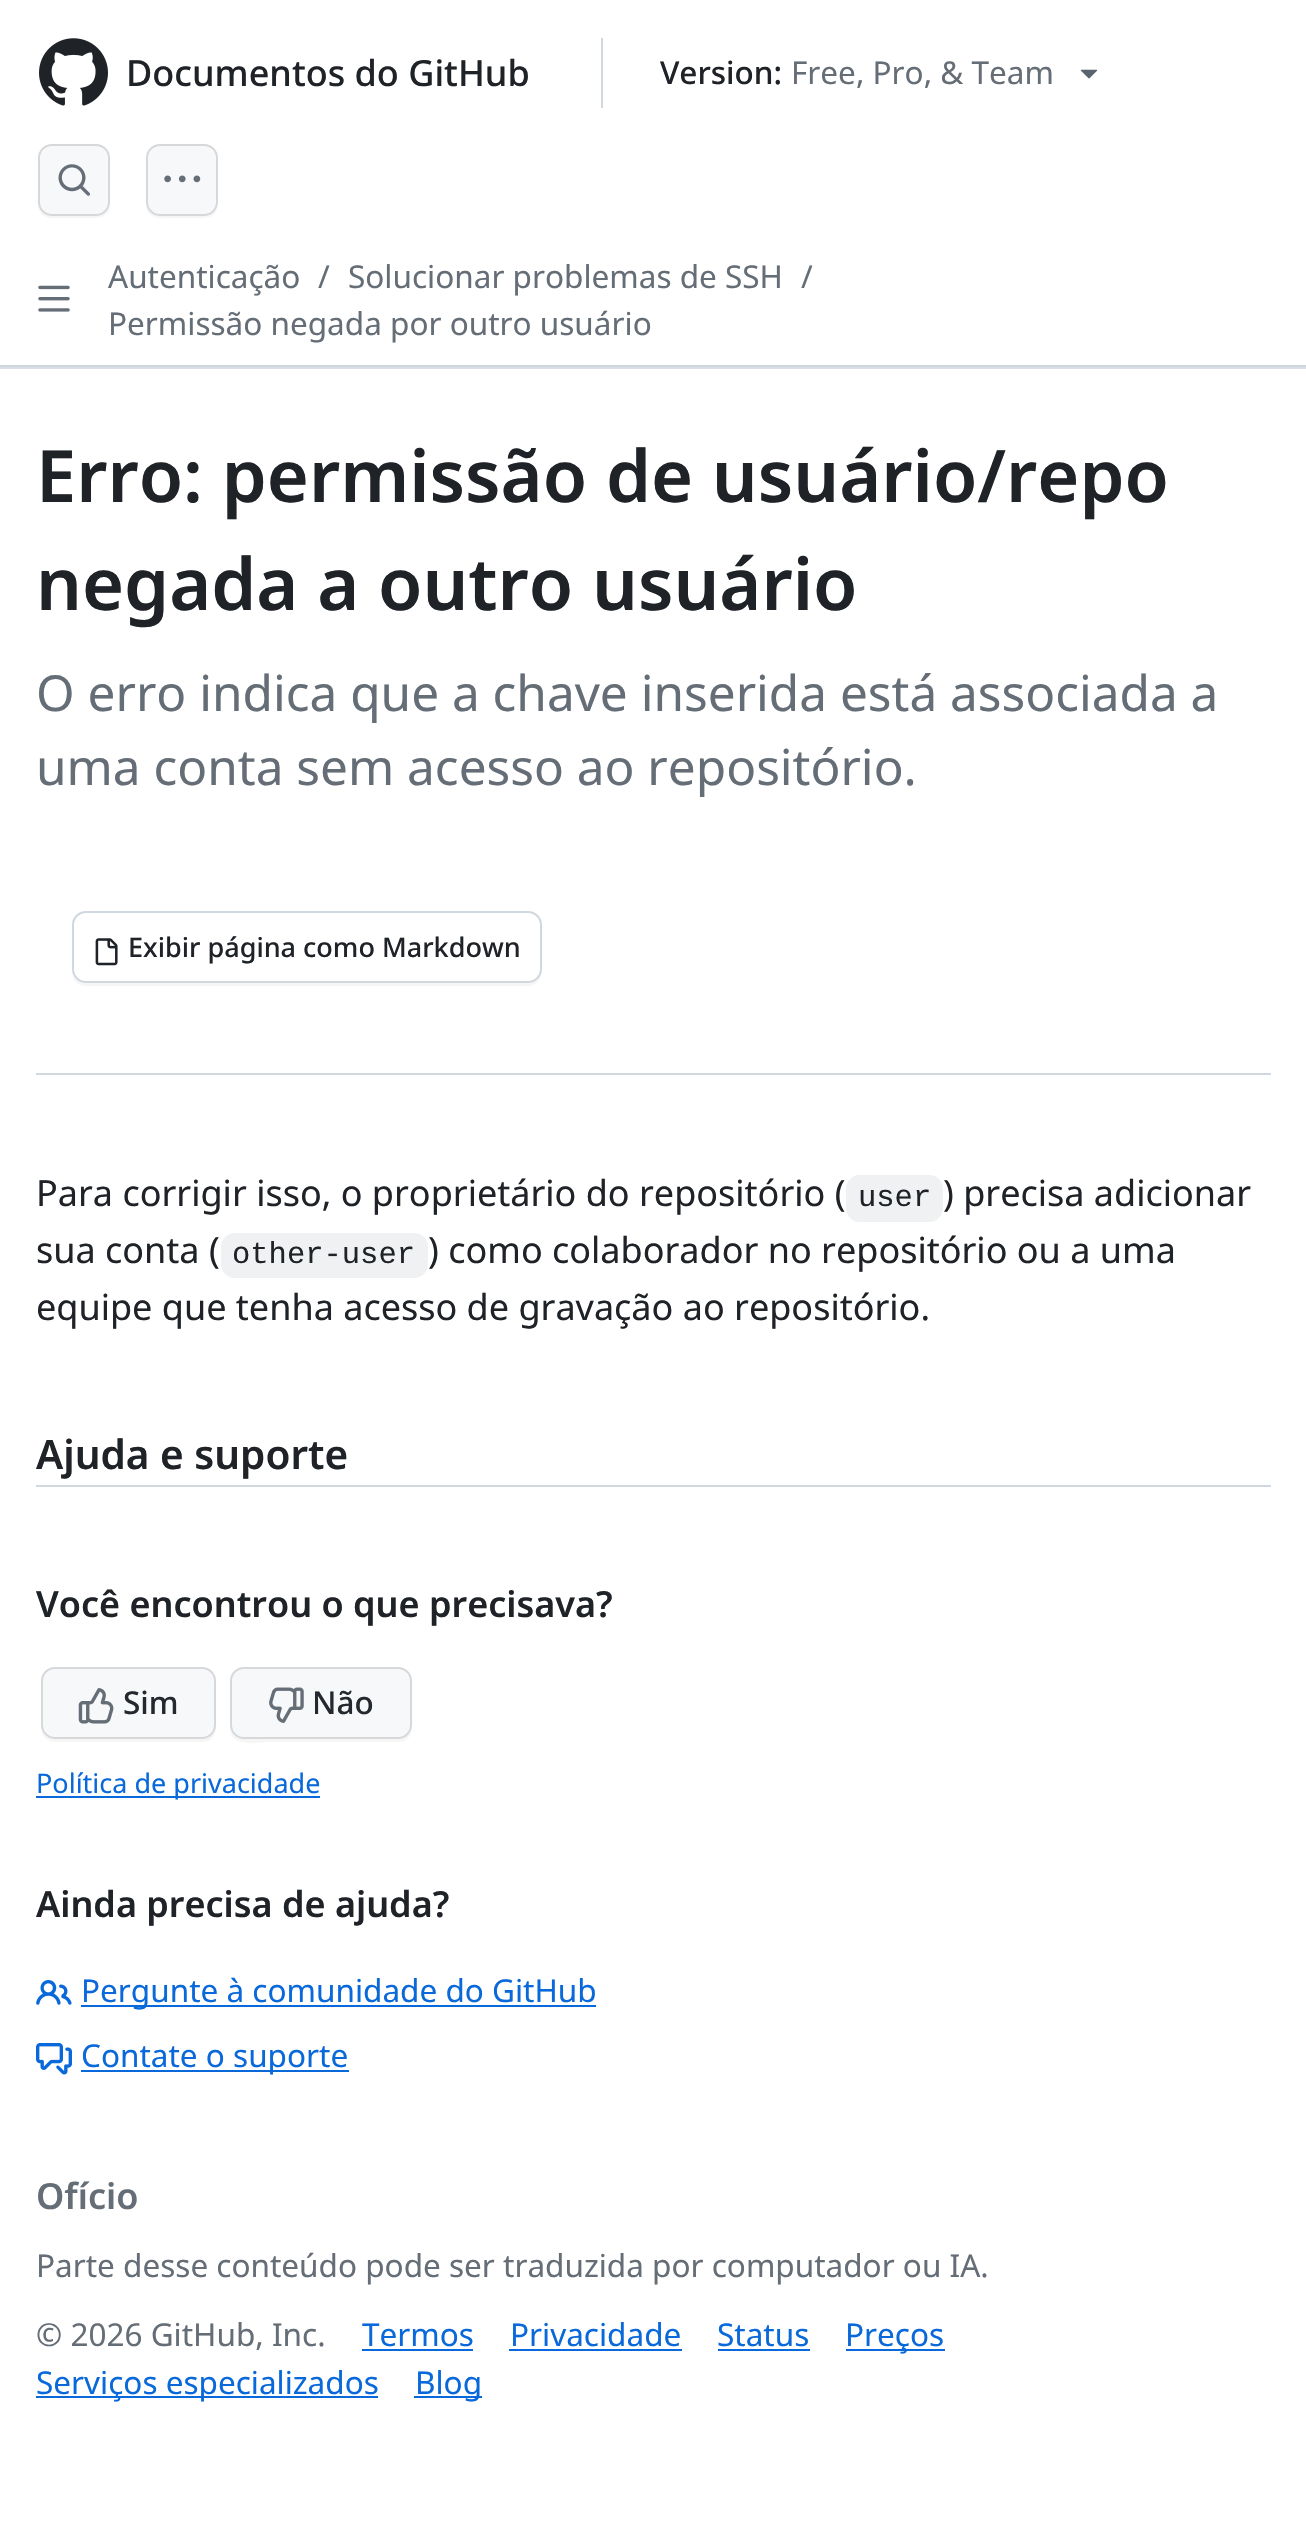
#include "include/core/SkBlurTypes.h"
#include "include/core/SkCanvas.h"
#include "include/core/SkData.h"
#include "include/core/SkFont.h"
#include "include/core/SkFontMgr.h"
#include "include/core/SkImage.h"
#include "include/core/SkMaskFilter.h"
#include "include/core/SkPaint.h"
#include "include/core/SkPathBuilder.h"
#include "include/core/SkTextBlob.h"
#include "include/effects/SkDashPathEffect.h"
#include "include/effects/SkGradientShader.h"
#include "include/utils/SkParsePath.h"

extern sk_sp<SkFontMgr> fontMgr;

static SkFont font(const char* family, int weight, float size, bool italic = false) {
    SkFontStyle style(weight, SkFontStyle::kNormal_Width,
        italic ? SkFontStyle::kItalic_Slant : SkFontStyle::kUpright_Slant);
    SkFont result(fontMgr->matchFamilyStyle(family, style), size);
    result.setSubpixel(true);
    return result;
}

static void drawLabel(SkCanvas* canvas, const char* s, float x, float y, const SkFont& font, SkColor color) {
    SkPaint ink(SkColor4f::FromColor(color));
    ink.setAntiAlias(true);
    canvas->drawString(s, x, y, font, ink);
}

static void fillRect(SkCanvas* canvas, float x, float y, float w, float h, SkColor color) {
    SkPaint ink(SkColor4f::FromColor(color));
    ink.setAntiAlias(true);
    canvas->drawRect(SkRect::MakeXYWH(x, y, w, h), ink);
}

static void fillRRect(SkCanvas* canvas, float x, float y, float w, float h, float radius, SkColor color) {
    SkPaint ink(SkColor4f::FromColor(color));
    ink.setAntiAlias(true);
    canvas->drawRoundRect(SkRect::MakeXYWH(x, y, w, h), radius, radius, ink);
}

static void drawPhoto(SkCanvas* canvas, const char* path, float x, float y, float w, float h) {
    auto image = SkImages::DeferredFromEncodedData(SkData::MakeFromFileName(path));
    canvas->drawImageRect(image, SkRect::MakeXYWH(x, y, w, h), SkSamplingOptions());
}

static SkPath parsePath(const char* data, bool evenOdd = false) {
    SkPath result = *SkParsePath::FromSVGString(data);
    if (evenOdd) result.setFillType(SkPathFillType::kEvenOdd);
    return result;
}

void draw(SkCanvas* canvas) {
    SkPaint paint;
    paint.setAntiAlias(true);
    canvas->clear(0xFFFFFFFF);
    fillRect(canvas, 0, 367, 1306, 2, 0xFFD8DEE4);
    fillRect(canvas, 0, 365, 1306, 2, 0xFFD0D7DE);
    drawPhoto(canvas, "assets/img1.png", 39, 38, 69, 68);
    SkFont font1 = font("Noto Sans", 500, 36);
    drawLabel(canvas, "Documentos do GitHub", 126, 86, font1, 0xFF1F2328);
    fillRect(canvas, 601, 38, 2, 70, 0xFFD0D7DE);
    SkFont font2 = font("Noto Sans", 500, 31.5f);
    drawLabel(canvas, "Version:", 660, 84, font2, 0xFF1F2328);
    SkFont font3 = font("Noto Sans", 400, 31.5f);
    drawLabel(canvas, "Free, Pro, & Team", 791, 84, font3, 0xFF656D76);
    drawPhoto(canvas, "assets/img2.png", 1080, 69, 18, 10);
    paint.setColor(0xFFF6F6F6);
    canvas->drawPath(parsePath("M38 157V189C38 200 35 215 49 218H89C98 218 109 218 110 205C109 211 103 216 97 216H52C44 216 38 210 38 202Z"), paint);
    fillRRect(canvas, 38, 144, 72, 72, 14, 0xFFF6F8FA);
    paint.setStroke(true);
    paint.setStrokeWidth(2);
    paint.setColor(0x261F2328);
    canvas->drawRoundRect(SkRect::MakeXYWH(39, 145, 70, 70), 13, 13, paint);
    drawPhoto(canvas, "assets/img3.png", 58, 164, 32, 32);
    paint.setStroke(false);
    paint.setColor(0xFFF6F6F6);
    canvas->drawPath(parsePath("M146 157V207C149 221 164 218 175 218H197C206 218 217 218 218 205C217 211 211 216 205 216H160C152 216 146 210 146 202Z"), paint);
    fillRRect(canvas, 146, 144, 72, 72, 14, 0xFFF6F8FA);
    paint.setStroke(true);
    paint.setColor(0x261F2328);
    canvas->drawRoundRect(SkRect::MakeXYWH(147, 145, 70, 70), 13, 13, paint);
    drawPhoto(canvas, "assets/img4.png", 164, 175, 37, 8);
    drawPhoto(canvas, "assets/img5.png", 38, 285, 32, 27);
    drawLabel(canvas, "Autenticação", 108, 288, font3, 0xFF656D76);
    drawLabel(canvas, "/", 318, 288, font3, 0xFF656D76);
    drawLabel(canvas, "Solucionar problemas de SSH", 348, 288, font3, 0xFF656D76);
    drawLabel(canvas, "/", 801, 288, font3, 0xFF656D76);
    drawLabel(canvas, "Permissão negada por outro usuário", 108, 335, font3, 0xFF656D76);
    SkFont font4 = font("Noto Sans", 600, 72);
    drawLabel(canvas, "Erro: permissão de usuário/repo", 36, 502, font4, 0xFF1F2328);
    drawLabel(canvas, "negada a outro usuário", 36, 610, font4, 0xFF1F2328);
    SkFont font5 = font("Noto Sans", 400, 49.5f);
    drawLabel(canvas, "O erro indica que a chave inserida está associada a", 36, 711, font5, 0xFF656D76);
    drawLabel(canvas, "uma conta sem acesso ao repositório.", 36, 785, font5, 0xFF656D76);
    fillRect(canvas, 36, 1073, 1235, 2, 0xFFD0D7DE);
    paint.setStroke(false);
    paint.setColor(0xFFF6F6F6);
    canvas->drawPath(parsePath("M72 970C72 978 76 986 86 986H528C535 986 542 980 542 972C541 979 535 983 529 983H86C78 983 72 977 72 970Z"), paint);
    paint.setStroke(true);
    paint.setColor(0xFFD0D7DE);
    canvas->drawRoundRect(SkRect::MakeXYWH(73, 912, 468, 70), 13, 13, paint);
    drawPhoto(canvas, "assets/img6.png", 95, 938, 23, 28);
    SkFont font6 = font("Noto Sans", 500, 27);
    drawLabel(canvas, "Exibir página como Markdown", 128, 957, font6, 0xFF1F2328);
    SkFont font7 = font("Noto Sans", 400, 36);
    drawLabel(canvas, "Para corrigir isso, o proprietário do repositório (", 36, 1206, font7, 0xFF1F2328);
    fillRRect(canvas, 846, 1175, 97, 47, 14, 0xFFEFF1F3);
    SkFont font8 = font("Liberation Mono", 400, 30.5f);
    drawLabel(canvas, "user", 858, 1206, font8, 0xFF1F2328);
    drawLabel(canvas, ") precisa adicionar", 943, 1206, font7, 0xFF1F2328);
    drawLabel(canvas, "sua conta (", 36, 1263, font7, 0xFF1F2328);
    fillRRect(canvas, 221, 1233, 207, 45, 14, 0xFFEFF1F3);
    drawLabel(canvas, "other-user", 232, 1263, font8, 0xFF1F2328);
    drawLabel(canvas, ") como colaborador no repositório ou a uma", 428, 1263, font7, 0xFF1F2328);
    drawLabel(canvas, "equipe que tenha acesso de gravação ao repositório.", 36, 1320, font7, 0xFF1F2328);
    SkFont font9 = font("Noto Sans", 600, 40.5f);
    drawLabel(canvas, "Ajuda e suporte", 36, 1469, font9, 0xFF1F2328);
    fillRect(canvas, 36, 1485, 1235, 2, 0xFFD0D7DE);
    SkFont font10 = font("Noto Sans", 600, 36);
    drawLabel(canvas, "Você encontrou o que precisava?", 36, 1617, font10, 0xFF1F2328);
    paint.setStroke(false);
    paint.setColor(0xFFF6F6F6);
    canvas->drawPath(parsePath("M41 1730C42 1737 48 1742 55 1742H202C210 1742 216 1736 216 1728V1726C216 1733 210 1739 202 1739H54C48 1739 43 1735 41 1730Z"), paint);
    fillRRect(canvas, 41, 1667, 175, 72, 14, 0xFFF6F8FA);
    paint.setStroke(true);
    paint.setColor(0x261F2328);
    canvas->drawRoundRect(SkRect::MakeXYWH(42, 1668, 173, 70), 13, 13, paint);
    drawPhoto(canvas, "assets/img7.png", 78, 1688, 36, 36);
    drawLabel(canvas, "Sim", 123, 1714, font2, 0xFF24292F);
    paint.setStroke(false);
    paint.setColor(0xFFF6F6F6);
    canvas->drawPath(parsePath("M230 1730C232 1748 260 1742 270 1742H398C414 1742 412 1724 412 1713V1681V1726C412 1733 406 1739 398 1739H243C237 1739 232 1735 230 1730Z"), paint);
    fillRRect(canvas, 230, 1667, 182, 72, 14, 0xFFF6F8FA);
    paint.setStroke(true);
    paint.setColor(0x261F2328);
    canvas->drawRoundRect(SkRect::MakeXYWH(231, 1668, 180, 70), 13, 13, paint);
    drawPhoto(canvas, "assets/img8.png", 269, 1687, 35, 36);
    drawLabel(canvas, "Não", 312, 1714, font2, 0xFF24292F);
    fillRect(canvas, 36, 1796, 284, 2, 0xFF0969DA);
    SkFont font11 = font("Noto Sans", 400, 27);
    drawLabel(canvas, "Política de privacidade", 36, 1793, font11, 0xFF0969DA);
    drawLabel(canvas, "Ainda precisa de ajuda?", 36, 1917, font10, 0xFF1F2328);
    drawPhoto(canvas, "assets/img9.png", 36, 1980, 36, 25);
    fillRect(canvas, 81, 2005, 515, 2, 0xFF0969DA);
    drawLabel(canvas, "Pergunte à comunidade do GitHub", 81, 2002, font3, 0xFF0969DA);
    drawPhoto(canvas, "assets/img10.png", 36, 2043, 36, 32);
    fillRect(canvas, 81, 2070, 268, 2, 0xFF0969DA);
    drawLabel(canvas, "Contate o suporte", 81, 2067, font3, 0xFF0969DA);
    drawLabel(canvas, "Ofício", 36, 2209, font10, 0xFF656D76);
    drawLabel(canvas, "Parte desse conteúdo pode ser traduzida por computador ou IA.", 36, 2277, font3, 0xFF656D76);
    drawLabel(canvas, "© 2026 GitHub, Inc.", 36, 2346, font3, 0xFF656D76);
    drawLabel(canvas, "Termos", 362, 2346, font3, 0xFF0969DA);
    fillRect(canvas, 362, 2349, 111, 2, 0xFF0969DA);
    drawLabel(canvas, "Privacidade", 510, 2346, font3, 0xFF0969DA);
    fillRect(canvas, 509, 2349, 173, 2, 0xFF0969DA);
    drawLabel(canvas, "Status", 717, 2346, font3, 0xFF0969DA);
    fillRect(canvas, 718, 2349, 92, 2, 0xFF0969DA);
    fillRect(canvas, 846, 2349, 99, 2, 0xFF0969DA);
    drawLabel(canvas, "Preços", 845, 2346, font3, 0xFF0969DA);
    fillRect(canvas, 36, 2396, 342, 2, 0xFF0969DA);
    drawLabel(canvas, "Serviços especializados", 36, 2394, font3, 0xFF0969DA);
    fillRect(canvas, 414, 2396, 68, 2, 0xFF0969DA);
    drawLabel(canvas, "Blog", 415, 2394, font3, 0xFF0969DA);
}
